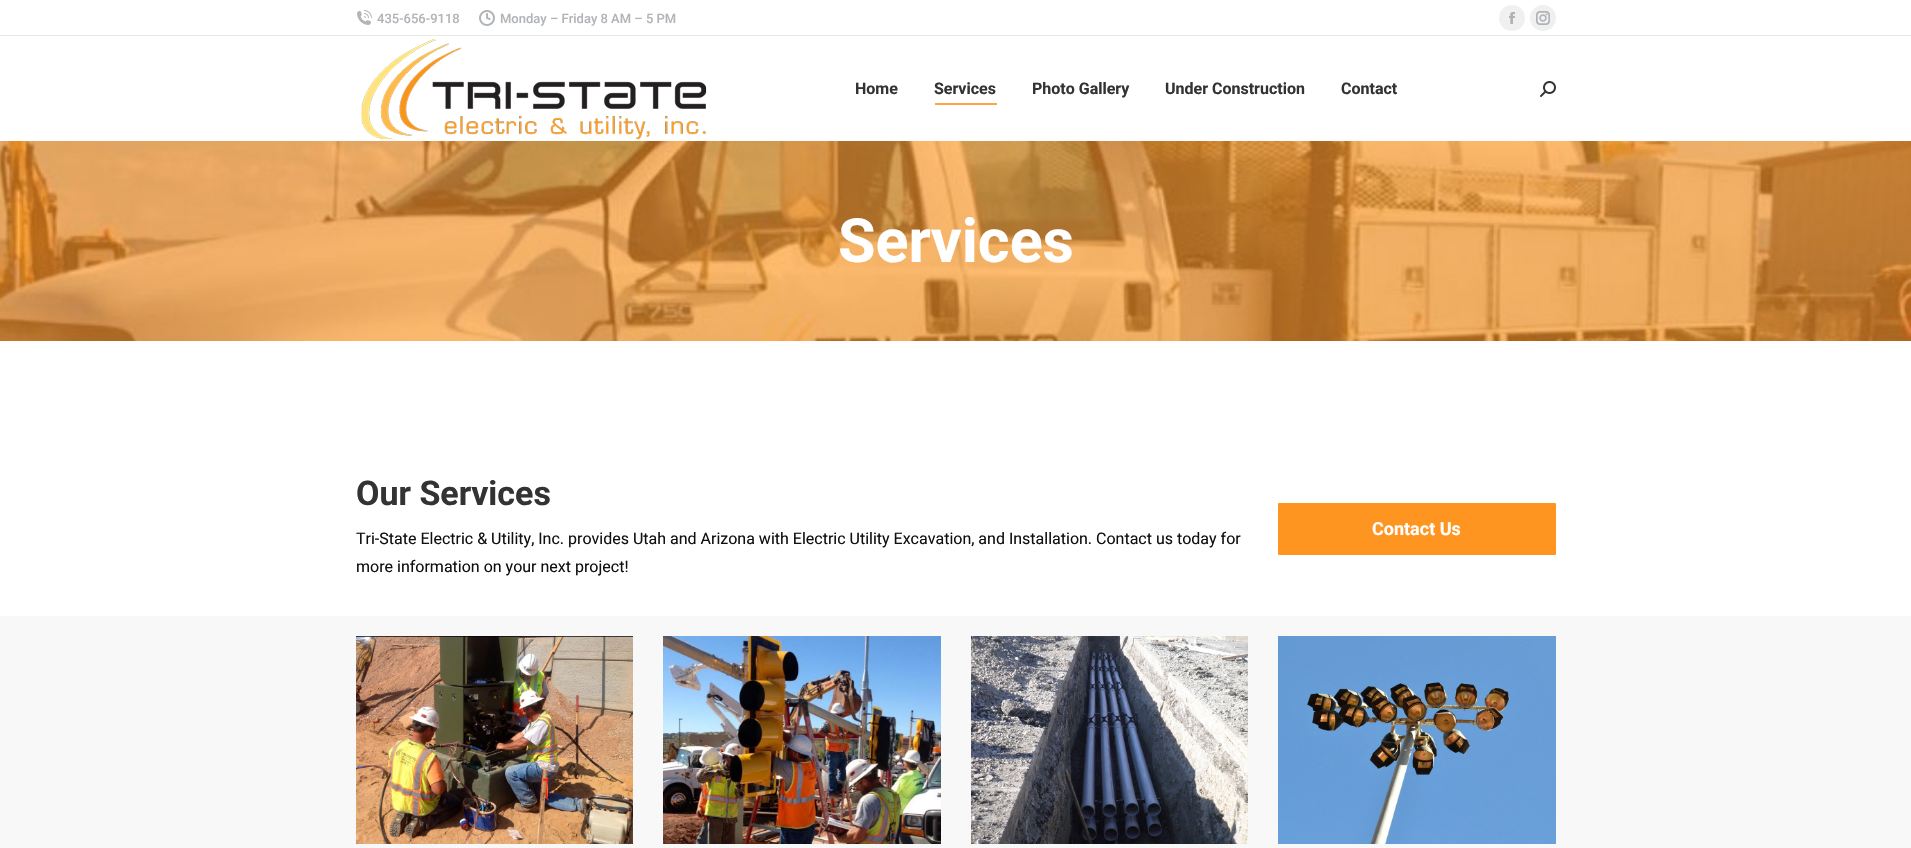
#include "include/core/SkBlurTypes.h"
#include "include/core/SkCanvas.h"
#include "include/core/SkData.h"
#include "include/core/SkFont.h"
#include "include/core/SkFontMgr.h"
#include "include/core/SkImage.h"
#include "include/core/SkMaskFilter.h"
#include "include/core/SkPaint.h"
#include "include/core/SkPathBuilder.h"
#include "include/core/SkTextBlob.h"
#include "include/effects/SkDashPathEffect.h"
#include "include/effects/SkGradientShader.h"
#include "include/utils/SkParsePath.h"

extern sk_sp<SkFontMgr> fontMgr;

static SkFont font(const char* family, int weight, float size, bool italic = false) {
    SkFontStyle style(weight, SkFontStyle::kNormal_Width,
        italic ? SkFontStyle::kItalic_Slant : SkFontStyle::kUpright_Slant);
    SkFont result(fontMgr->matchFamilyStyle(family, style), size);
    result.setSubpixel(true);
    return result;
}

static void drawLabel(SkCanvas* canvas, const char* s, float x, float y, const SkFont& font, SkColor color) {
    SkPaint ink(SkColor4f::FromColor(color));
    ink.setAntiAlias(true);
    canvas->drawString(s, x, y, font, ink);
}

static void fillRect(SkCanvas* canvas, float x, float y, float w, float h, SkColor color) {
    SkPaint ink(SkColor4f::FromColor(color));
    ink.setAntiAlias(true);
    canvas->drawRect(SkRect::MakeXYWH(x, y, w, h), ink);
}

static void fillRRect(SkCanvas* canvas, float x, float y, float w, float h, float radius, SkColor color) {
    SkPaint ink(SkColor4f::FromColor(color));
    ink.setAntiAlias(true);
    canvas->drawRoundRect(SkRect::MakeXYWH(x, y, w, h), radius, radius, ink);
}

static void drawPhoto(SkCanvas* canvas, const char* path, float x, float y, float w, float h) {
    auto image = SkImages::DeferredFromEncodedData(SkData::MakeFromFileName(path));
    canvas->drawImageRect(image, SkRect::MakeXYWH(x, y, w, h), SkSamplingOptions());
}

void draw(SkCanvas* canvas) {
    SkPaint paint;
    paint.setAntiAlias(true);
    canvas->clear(0xFFFFFFFF);
    drawPhoto(canvas, "assets/img1.png", 357, 10, 15, 15);
    SkFont font1 = font("Roboto", 500, 13);
    drawLabel(canvas, "435-656-9118", 377, 23, font1, 0xFFB1B4B8);
    drawPhoto(canvas, "assets/img2.png", 479, 10, 16, 16);
    drawLabel(canvas, "Monday – Friday 8 AM – 5 PM", 500, 23, font1, 0xFFB1B4B8);
    paint.setColor(0xFFF0F0F0);
    canvas->drawCircle(1512, 18, 13, paint);
    drawPhoto(canvas, "assets/img3.png", 1509, 12, 6, 12);
    canvas->drawCircle(1543, 18, 13, paint);
    drawPhoto(canvas, "assets/img4.png", 1536, 11, 14, 14);
    fillRect(canvas, 0, 35, 1911, 1, 0xFFE9E9E9);
    drawPhoto(canvas, "assets/img5.png", 361, 39, 346, 100);
    SkFont font2 = font("Roboto", 700, 16);
    drawLabel(canvas, "Home", 855, 94, font2, 0xFF333333);
    drawLabel(canvas, "Services", 934, 94, font2, 0xFF333333);
    fillRect(canvas, 935, 103, 62, 2, 0xFFFFA542);
    drawLabel(canvas, "Photo Gallery", 1032, 94, font2, 0xFF333333);
    drawLabel(canvas, "Under Construction", 1165, 94, font2, 0xFF333333);
    drawLabel(canvas, "Contact", 1341, 94, font2, 0xFF333333);
    drawPhoto(canvas, "assets/img6.png", 1540, 81, 16, 16);
    drawPhoto(canvas, "assets/img7.png", 0, 141, 1911, 200);
    SkFont font3 = font("Roboto", 700, 61);
    drawLabel(canvas, "Services", 838, 262, font3, 0xFFFFFFFF);
    SkFont font4 = font("Roboto", 700, 34);
    drawLabel(canvas, "Our Services", 356, 505, font4, 0xFF333333);
    SkFont font5 = font("Roboto", 400, 16);
    drawLabel(canvas, "Tri-State Electric & Utility, Inc. provides Utah and Arizona with Electric Utility Excavation, and Installation. Contact us today for", 356, 544, font5, 0xFF110F0F);
    drawLabel(canvas, "more information on your next project!", 356, 572, font5, 0xFF110F0F);
    fillRRect(canvas, 1278, 503, 278, 52, 1, 0xFFFF9521);
    SkFont font6 = font("Roboto", 700, 18);
    drawLabel(canvas, "Contact Us", 1372, 535, font6, 0xFFFFFFFF);
    fillRect(canvas, 0, 616, 1911, 232, 0xFFF8F8F9);
    drawPhoto(canvas, "assets/img8.png", 356, 636, 277, 208);
    drawPhoto(canvas, "assets/img9.png", 663, 636, 278, 208);
    drawPhoto(canvas, "assets/img10.png", 971, 636, 277, 208);
    drawPhoto(canvas, "assets/img11.png", 1278, 636, 278, 208);
}
